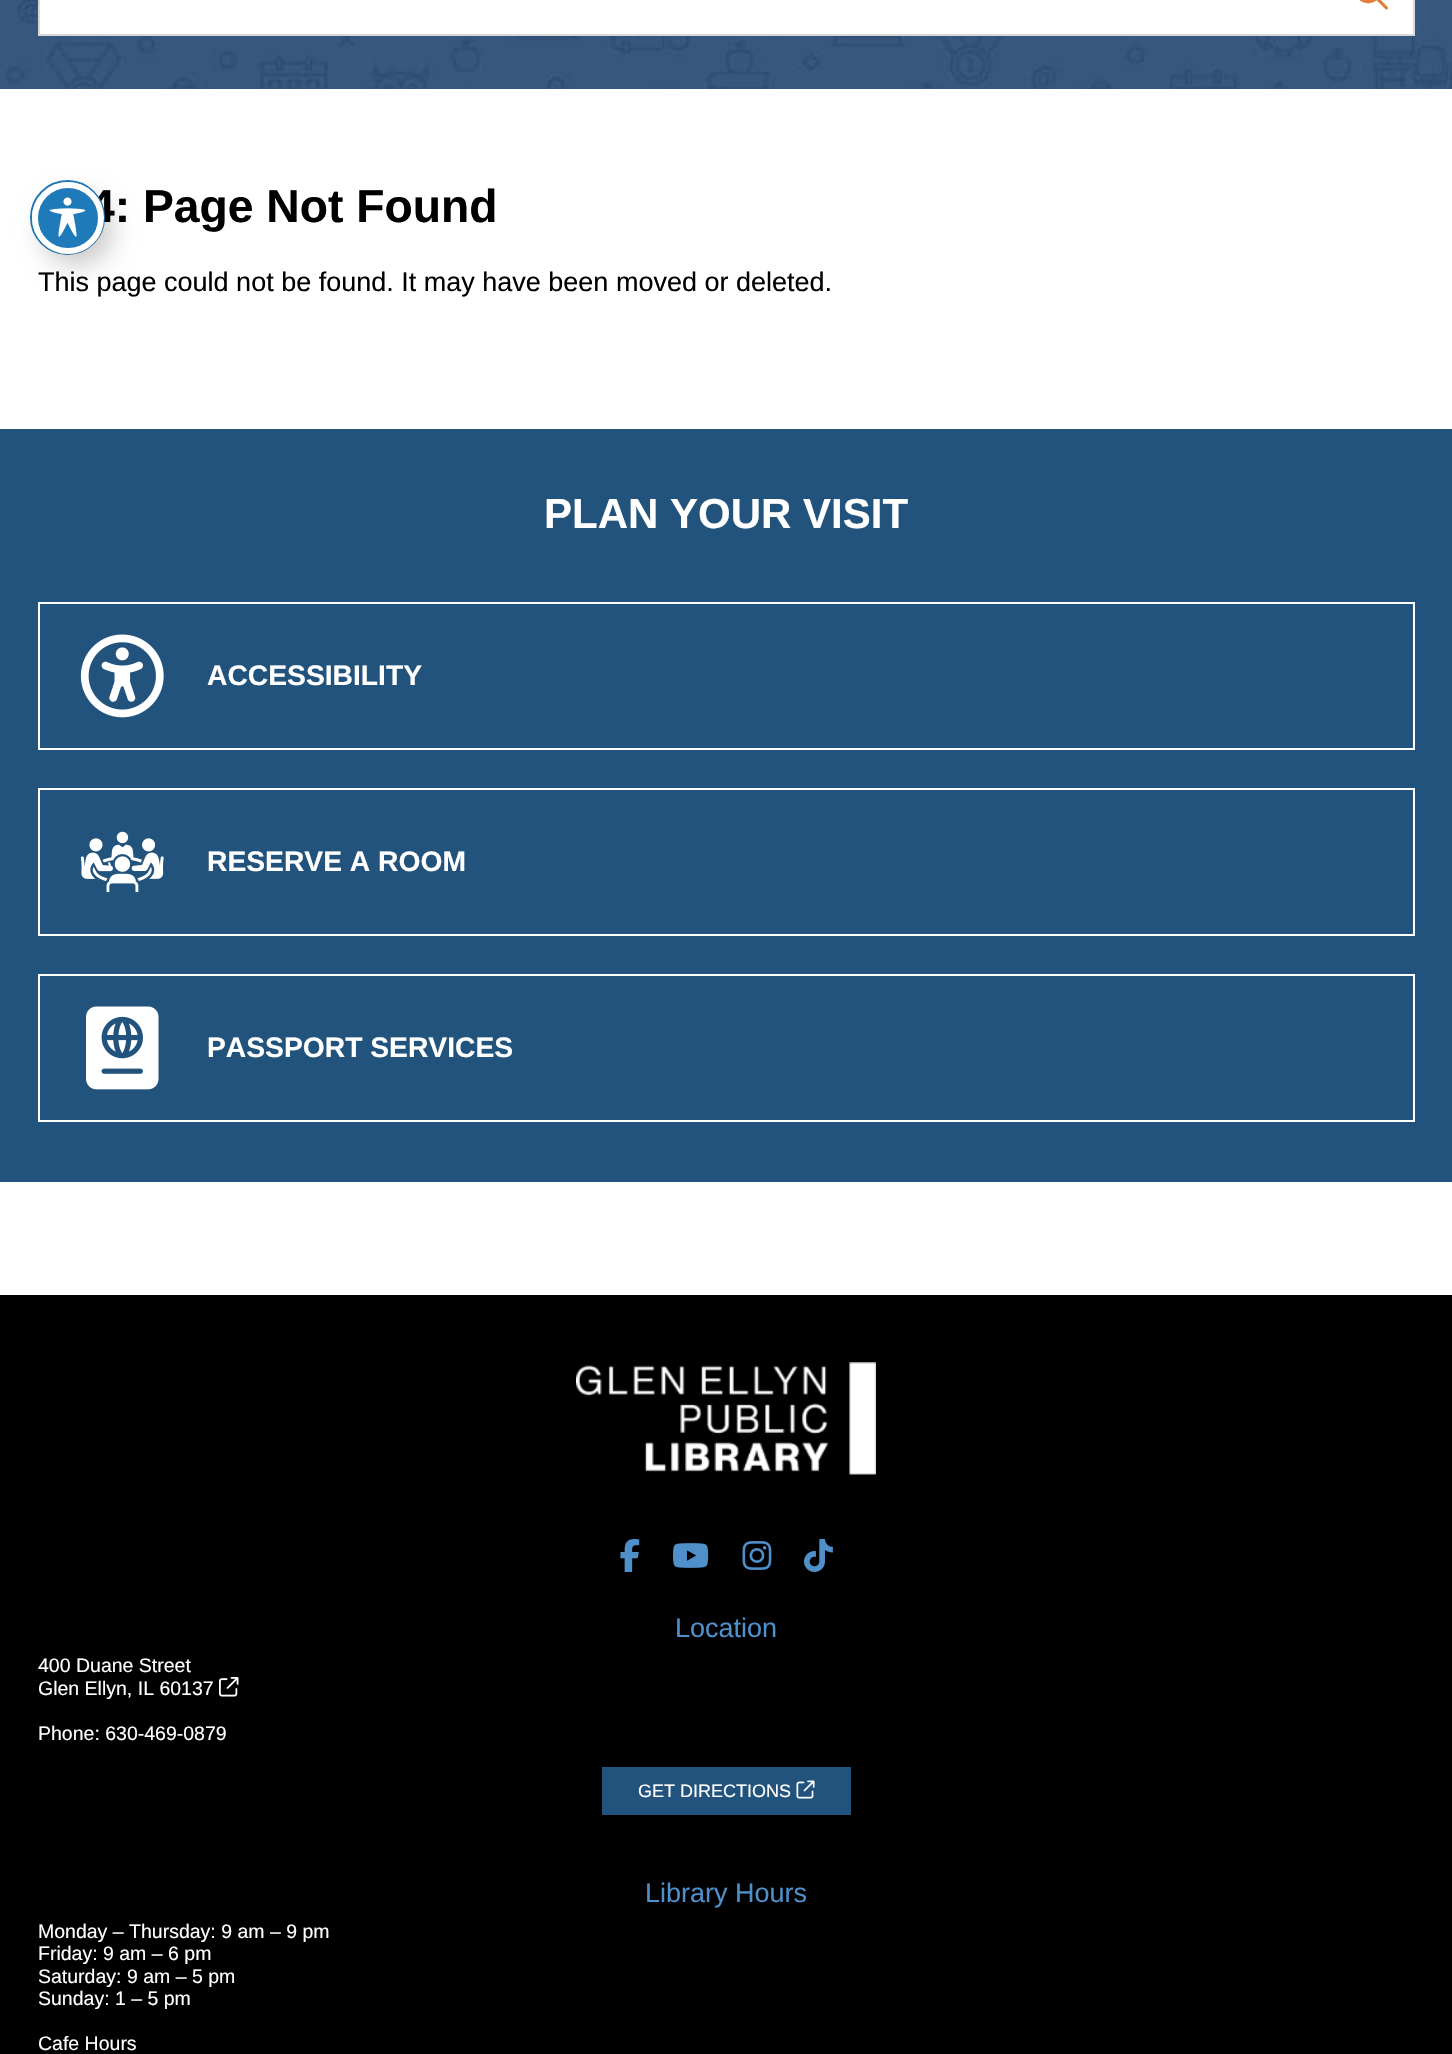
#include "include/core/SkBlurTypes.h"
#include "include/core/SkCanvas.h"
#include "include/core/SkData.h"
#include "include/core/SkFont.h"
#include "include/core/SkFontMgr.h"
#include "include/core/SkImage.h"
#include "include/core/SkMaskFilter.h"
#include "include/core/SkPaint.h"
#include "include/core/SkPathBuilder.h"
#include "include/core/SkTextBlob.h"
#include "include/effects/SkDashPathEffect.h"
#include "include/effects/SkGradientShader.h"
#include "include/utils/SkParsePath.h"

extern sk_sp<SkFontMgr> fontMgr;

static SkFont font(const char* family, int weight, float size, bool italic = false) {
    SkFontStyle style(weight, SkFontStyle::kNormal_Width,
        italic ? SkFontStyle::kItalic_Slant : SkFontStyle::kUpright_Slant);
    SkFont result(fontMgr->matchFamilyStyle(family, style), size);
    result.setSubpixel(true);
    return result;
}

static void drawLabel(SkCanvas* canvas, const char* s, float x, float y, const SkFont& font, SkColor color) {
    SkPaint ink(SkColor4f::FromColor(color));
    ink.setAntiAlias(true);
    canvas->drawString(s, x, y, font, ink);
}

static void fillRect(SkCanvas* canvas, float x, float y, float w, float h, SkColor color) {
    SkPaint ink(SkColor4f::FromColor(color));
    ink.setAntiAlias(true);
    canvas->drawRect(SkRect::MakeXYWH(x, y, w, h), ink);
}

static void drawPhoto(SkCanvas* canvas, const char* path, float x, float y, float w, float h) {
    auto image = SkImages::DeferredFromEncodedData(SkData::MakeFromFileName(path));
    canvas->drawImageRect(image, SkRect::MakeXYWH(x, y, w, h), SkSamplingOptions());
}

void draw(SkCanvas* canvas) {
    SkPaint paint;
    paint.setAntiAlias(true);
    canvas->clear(0xFFFFFFFF);
    SkFont font1 = font("Liberation Sans", 700, 46.25f);
    drawLabel(canvas, "4: Page Not Found", 89, 222, font1, 0xFF000000);
    paint.setStroke(true);
    paint.setStrokeWidth(2);
    paint.setColor(0xFF1E7AB9);
    canvas->drawCircle(67.5f, 217.5f, 36.5f, paint);
    paint.setStroke(false);
    paint.setColor(0x33000000);
    paint.setMaskFilter(SkMaskFilter::MakeBlur(kNormal_SkBlurStyle, 12));
    canvas->drawRoundRect(SkRect::MakeXYWH(41, 194, 72, 72), 36, 36, paint);
    paint.setMaskFilter(nullptr);
    paint.setColor(0xFF1E7AB9);
    canvas->drawCircle(68, 218, 33, paint);
    paint.setStroke(true);
    paint.setStrokeWidth(6);
    paint.setColor(0xFFFFFFFF);
    canvas->drawCircle(68, 218, 33, paint);
    drawPhoto(canvas, "assets/img1.png", 49, 197, 37, 40);
    drawPhoto(canvas, "assets/img2.png", 0, 0, 1452, 89);
    paint.setStroke(false);
    canvas->drawRect(SkRect::MakeXYWH(39, -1, 1375, 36), paint);
    paint.setStroke(true);
    paint.setStrokeWidth(2);
    paint.setColor(0xFFD8D8D8);
    canvas->drawRect(SkRect::MakeXYWH(39, -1, 1375, 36), paint);
    drawPhoto(canvas, "assets/img3.png", 1359, 0, 29, 10);
    SkFont font2 = font("Liberation Sans", 400, 27);
    drawLabel(canvas, "This page could not be found. It may have been moved or deleted.", 38, 291, font2, 0xFF000000);
    fillRect(canvas, 0, 429, 1452, 753, 0xFF22537C);
    SkFont font3 = font("Liberation Sans", 700, 42);
    drawLabel(canvas, "PLAN YOUR VISIT", 544, 528, font3, 0xFFFFFFFF);
    paint.setColor(0xFFFFFFFF);
    canvas->drawRect(SkRect::MakeXYWH(39, 603, 1375, 146), paint);
    drawPhoto(canvas, "assets/img4.png", 80, 634, 84, 84);
    SkFont font4 = font("Liberation Sans", 700, 28.25f);
    drawLabel(canvas, "ACCESSIBILITY", 207, 685, font4, 0xFFFFFFFF);
    canvas->drawRect(SkRect::MakeXYWH(39, 789, 1375, 146), paint);
    drawPhoto(canvas, "assets/img5.png", 80, 831, 84, 62);
    drawLabel(canvas, "RESERVE A ROOM", 207, 871, font4, 0xFFFFFFFF);
    canvas->drawRect(SkRect::MakeXYWH(39, 975, 1375, 146), paint);
    drawPhoto(canvas, "assets/img6.png", 86, 1006, 73, 84);
    drawLabel(canvas, "PASSPORT SERVICES", 207, 1057, font4, 0xFFFFFFFF);
    fillRect(canvas, 0, 1295, 1452, 759, 0xFF000000);
    drawPhoto(canvas, "assets/img7.png", 576, 1362, 300, 113);
    drawPhoto(canvas, "assets/img8.png", 620, 1539, 20, 33);
    drawPhoto(canvas, "assets/img9.png", 672, 1543, 37, 25);
    drawPhoto(canvas, "assets/img10.png", 742, 1541, 30, 29);
    drawPhoto(canvas, "assets/img11.png", 804, 1539, 29, 33);
    drawLabel(canvas, "Location", 675, 1637, font2, 0xFF4F90CB);
    SkFont font5 = font("Liberation Sans", 400, 19.5f);
    drawLabel(canvas, "400 Duane Street", 38, 1672, font5, 0xFFFFFFFF);
    drawLabel(canvas, "Glen Ellyn, IL 60137", 38, 1695, font5, 0xFFFFFFFF);
    drawPhoto(canvas, "assets/img12.png", 219, 1677, 20, 20);
    drawLabel(canvas, "Phone: 630-469-0879", 38, 1740, font5, 0xFFFFFFFF);
    fillRect(canvas, 602, 1767, 249, 48, 0xFF22537C);
    SkFont font6 = font("Liberation Sans", 400, 18);
    drawLabel(canvas, "GET DIRECTIONS", 638, 1797, font6, 0xFFFFFFFF);
    drawPhoto(canvas, "assets/img13.png", 796, 1780, 19, 19);
    drawLabel(canvas, "Library Hours", 645, 1902, font2, 0xFF4F90CB);
    drawLabel(canvas, "Monday – Thursday: 9 am – 9 pm", 38, 1938, font5, 0xFFFFFFFF);
    drawLabel(canvas, "Friday: 9 am – 6 pm", 38, 1960, font5, 0xFFFFFFFF);
    drawLabel(canvas, "Saturday: 9 am – 5 pm", 38, 1983, font5, 0xFFFFFFFF);
    drawLabel(canvas, "Sunday: 1 – 5 pm", 38, 2005, font5, 0xFFFFFFFF);
    drawLabel(canvas, "Cafe Hours", 38, 2050, font5, 0xFFFFFFFF);
}
